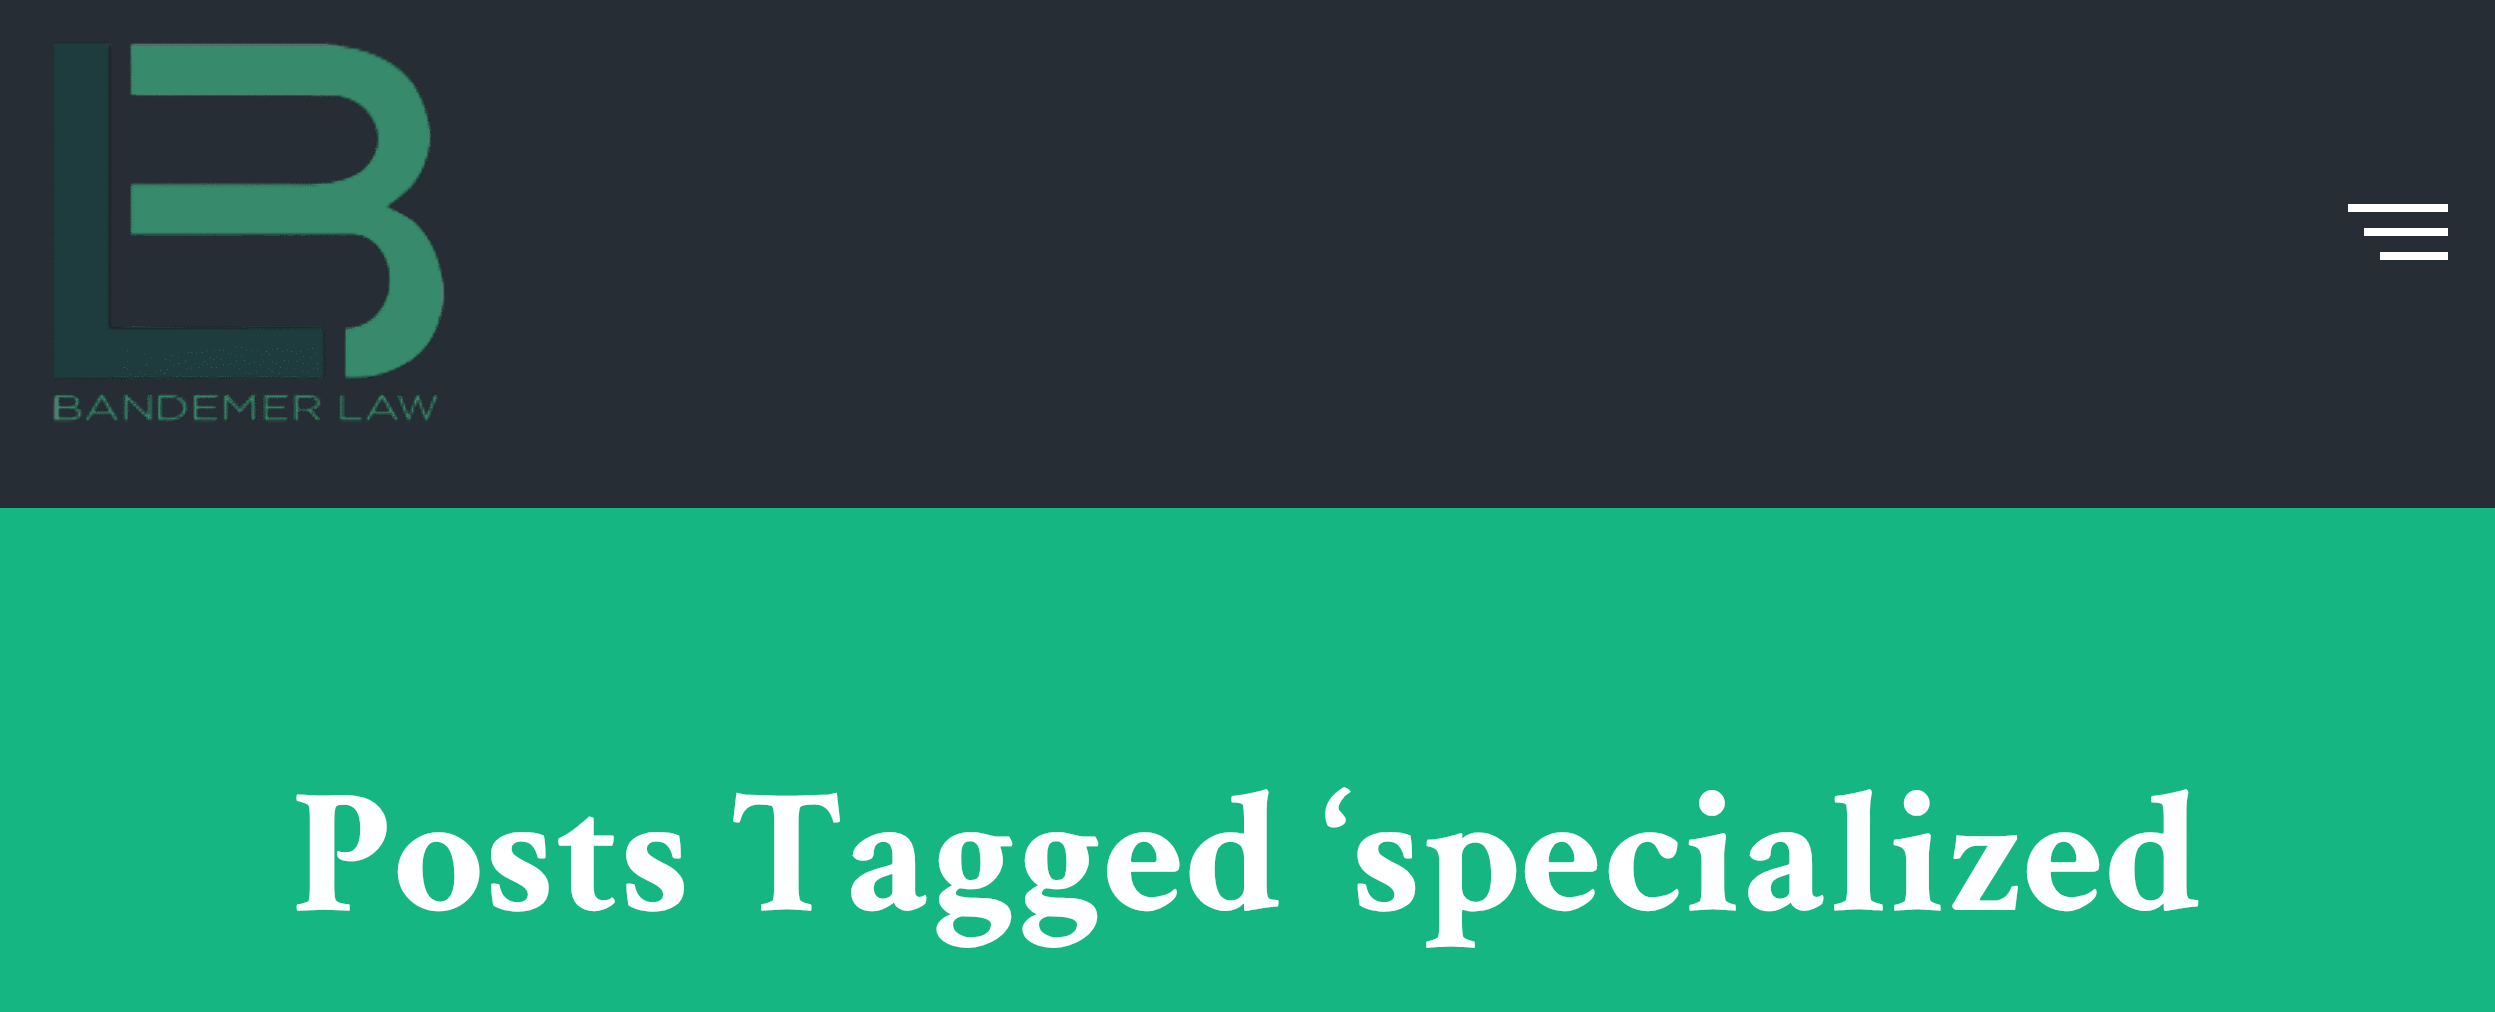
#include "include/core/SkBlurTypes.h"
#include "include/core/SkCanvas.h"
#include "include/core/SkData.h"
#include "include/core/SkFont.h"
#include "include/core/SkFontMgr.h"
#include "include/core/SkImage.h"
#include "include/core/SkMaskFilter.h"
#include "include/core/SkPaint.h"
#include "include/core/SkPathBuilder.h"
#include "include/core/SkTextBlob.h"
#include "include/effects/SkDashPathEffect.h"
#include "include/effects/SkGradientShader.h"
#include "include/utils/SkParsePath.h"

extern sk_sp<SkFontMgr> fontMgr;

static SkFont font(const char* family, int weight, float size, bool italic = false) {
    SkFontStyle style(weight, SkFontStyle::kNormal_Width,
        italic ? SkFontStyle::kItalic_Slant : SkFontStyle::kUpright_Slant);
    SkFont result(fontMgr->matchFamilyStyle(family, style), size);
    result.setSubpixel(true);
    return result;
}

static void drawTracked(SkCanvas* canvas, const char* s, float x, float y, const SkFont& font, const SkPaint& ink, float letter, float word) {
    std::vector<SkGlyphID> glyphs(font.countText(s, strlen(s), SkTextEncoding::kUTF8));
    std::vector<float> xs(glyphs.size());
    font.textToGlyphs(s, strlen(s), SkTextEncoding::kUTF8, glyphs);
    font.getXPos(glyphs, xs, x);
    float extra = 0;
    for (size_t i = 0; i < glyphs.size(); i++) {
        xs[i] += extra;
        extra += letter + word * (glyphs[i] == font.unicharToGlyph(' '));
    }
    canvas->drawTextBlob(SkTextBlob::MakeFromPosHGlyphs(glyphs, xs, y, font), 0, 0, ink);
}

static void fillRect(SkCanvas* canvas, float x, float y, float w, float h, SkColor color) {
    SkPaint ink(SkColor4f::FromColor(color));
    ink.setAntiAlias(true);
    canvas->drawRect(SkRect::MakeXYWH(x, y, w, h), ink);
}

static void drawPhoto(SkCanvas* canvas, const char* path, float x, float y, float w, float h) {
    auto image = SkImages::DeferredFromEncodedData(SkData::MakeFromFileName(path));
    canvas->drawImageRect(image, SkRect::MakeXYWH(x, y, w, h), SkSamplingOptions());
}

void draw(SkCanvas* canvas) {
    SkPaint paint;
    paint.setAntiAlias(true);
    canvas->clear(0xFF272D34);
    drawPhoto(canvas, "assets/img1.png", 52, 42, 393, 381);
    fillRect(canvas, 2348, 204, 100, 8, 0xFFFFFFFF);
    fillRect(canvas, 2364, 228, 84, 8, 0xFFFFFFFF);
    fillRect(canvas, 2380, 252, 68, 8, 0xFFFFFFFF);
    fillRect(canvas, 0, 508, 2495, 504, 0xFF16B683);
    SkFont font1 = font("Crimson Text", 700, 178);
    paint.setColor(0xFFFFFFFF);
    drawTracked(canvas, "Posts Tagged ‘specialized", 292, 910, font1, paint, 1.75f, 0);
}
